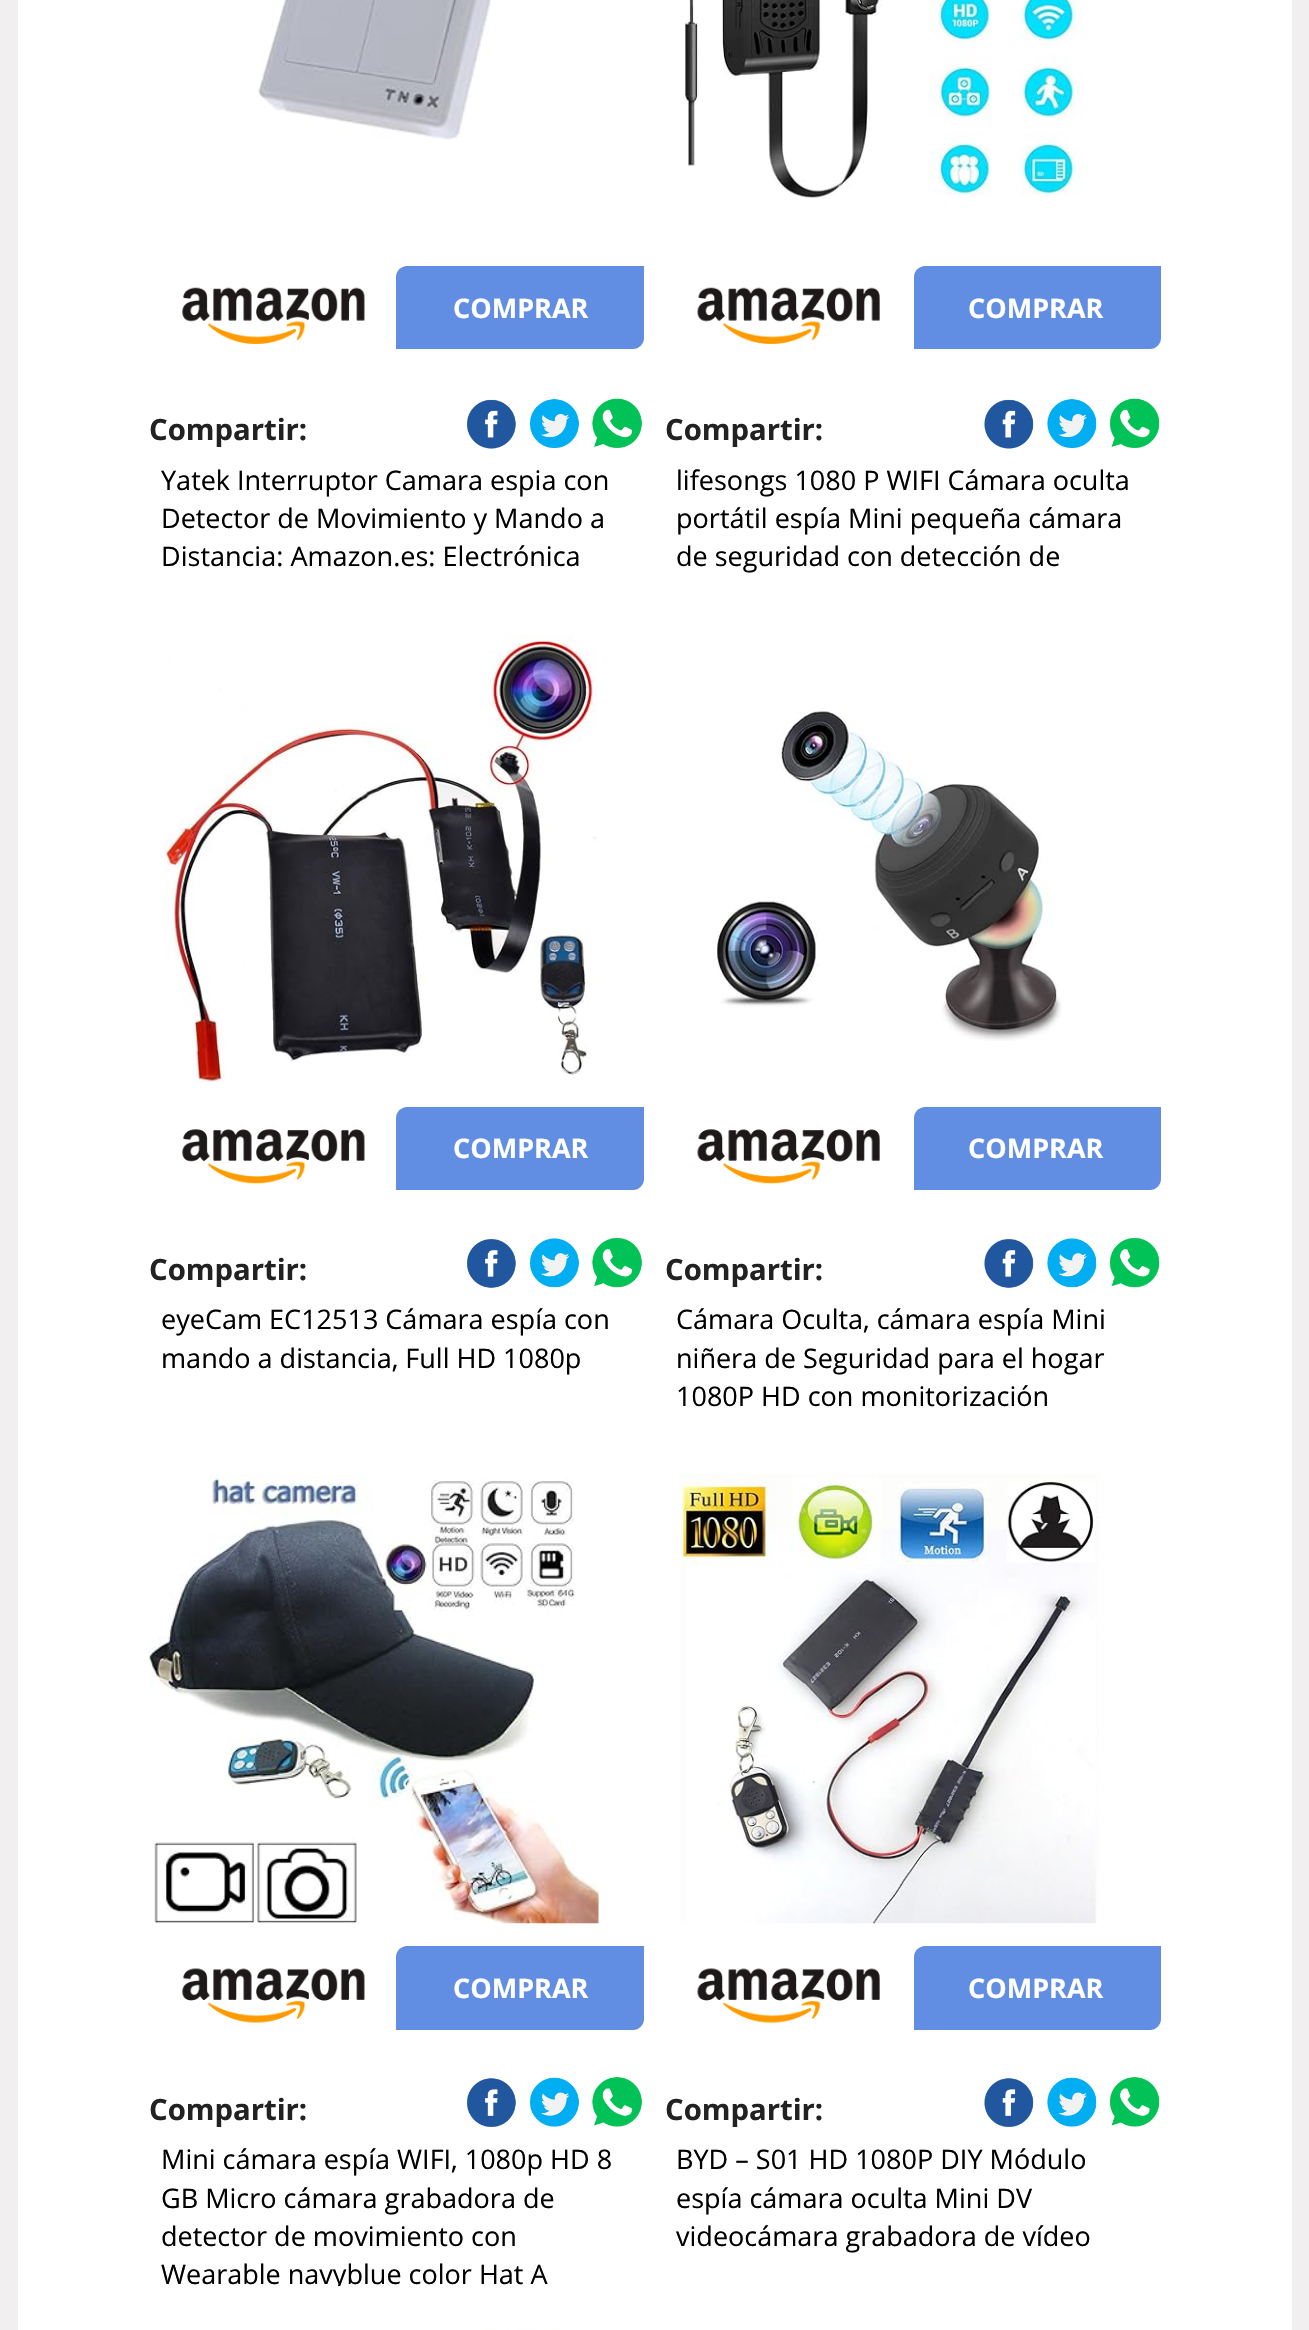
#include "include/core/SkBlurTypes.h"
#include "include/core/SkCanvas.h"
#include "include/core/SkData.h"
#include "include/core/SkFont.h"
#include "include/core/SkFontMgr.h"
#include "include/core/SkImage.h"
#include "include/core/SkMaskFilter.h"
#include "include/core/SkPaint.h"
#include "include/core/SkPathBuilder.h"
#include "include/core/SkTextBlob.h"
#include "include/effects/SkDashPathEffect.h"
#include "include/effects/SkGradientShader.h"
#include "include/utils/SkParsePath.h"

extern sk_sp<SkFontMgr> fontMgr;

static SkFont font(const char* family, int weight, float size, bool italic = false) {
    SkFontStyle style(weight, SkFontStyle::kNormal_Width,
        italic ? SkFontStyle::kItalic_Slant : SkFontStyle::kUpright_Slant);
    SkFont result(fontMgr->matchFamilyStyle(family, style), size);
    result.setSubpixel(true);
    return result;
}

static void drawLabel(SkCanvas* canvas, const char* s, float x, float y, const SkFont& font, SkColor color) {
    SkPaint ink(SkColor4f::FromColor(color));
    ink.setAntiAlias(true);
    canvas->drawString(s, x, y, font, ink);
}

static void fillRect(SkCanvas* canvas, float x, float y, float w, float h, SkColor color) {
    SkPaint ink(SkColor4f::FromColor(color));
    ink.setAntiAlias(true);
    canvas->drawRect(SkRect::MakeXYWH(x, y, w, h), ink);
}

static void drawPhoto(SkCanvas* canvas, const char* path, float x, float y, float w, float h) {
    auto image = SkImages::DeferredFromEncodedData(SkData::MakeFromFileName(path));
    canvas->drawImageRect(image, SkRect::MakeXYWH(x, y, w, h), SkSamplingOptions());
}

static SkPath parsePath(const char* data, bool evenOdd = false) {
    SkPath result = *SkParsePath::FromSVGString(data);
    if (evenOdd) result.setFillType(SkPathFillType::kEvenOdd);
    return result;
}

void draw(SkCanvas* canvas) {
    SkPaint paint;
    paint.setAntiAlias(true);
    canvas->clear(0xFFF1EFEF);
    fillRect(canvas, 18, 0, 1274, 2330, 0xFFFFFFFF);
    drawPhoto(canvas, "assets/img1.png", 256, 0, 235, 140);
    drawPhoto(canvas, "assets/img2.png", 182, 287, 183, 57);
    paint.setColor(0xFF618EE3);
    canvas->drawPath(parsePath("M407 266H644V338C644 344 639 349 633 349H396V277C396 271 401 266 407 266Z"), paint);
    SkFont font1 = font("Open Sans", 700, 27);
    drawLabel(canvas, "COMPRAR", 453, 318, font1, 0xFFFFFFFF);
    SkFont font2 = font("Open Sans", 700, 29.25f);
    drawLabel(canvas, "Compartir:", 149, 440, font2, 0xFF222222);
    drawPhoto(canvas, "assets/img3.png", 467, 399, 49, 50);
    drawPhoto(canvas, "assets/img4.png", 530, 399, 49, 49);
    drawPhoto(canvas, "assets/img5.png", 592, 398, 50, 50);
    SkFont font3 = font("Open Sans", 400, 27);
    drawLabel(canvas, "Yatek Interruptor Camara espia con", 161, 490, font3, 0xFF000000);
    drawLabel(canvas, "Detector de Movimiento y Mando a", 161, 528, font3, 0xFF000000);
    drawLabel(canvas, "Distancia: Amazon.es: Electrónica", 161, 566, font3, 0xFF000000);
    drawPhoto(canvas, "assets/img6.png", 682, 0, 401, 199);
    drawPhoto(canvas, "assets/img7.png", 697, 287, 183, 57);
    canvas->drawPath(parsePath("M925 266H1161V338C1161 344 1156 349 1150 349H914V277C914 271 919 266 925 266Z"), paint);
    drawLabel(canvas, "COMPRAR", 968, 318, font1, 0xFFFFFFFF);
    drawLabel(canvas, "Compartir:", 665, 440, font2, 0xFF222222);
    drawPhoto(canvas, "assets/img8.png", 984, 399, 50, 50);
    drawPhoto(canvas, "assets/img9.png", 1047, 399, 50, 49);
    drawPhoto(canvas, "assets/img10.png", 1110, 398, 50, 50);
    drawLabel(canvas, "lifesongs 1080 P WIFI Cámara oculta", 676, 490, font3, 0xFF000000);
    drawLabel(canvas, "portátil espía Mini pequeña cámara", 676, 528, font3, 0xFF000000);
    drawLabel(canvas, "de seguridad con detección de", 676, 566, font3, 0xFF000000);
    drawPhoto(canvas, "assets/img11.png", 164, 634, 433, 449);
    drawPhoto(canvas, "assets/img12.png", 182, 1129, 183, 55);
    canvas->drawPath(parsePath("M407 1107H644V1179C644 1185 639 1190 633 1190H396V1118C396 1112 401 1107 407 1107Z"), paint);
    drawLabel(canvas, "COMPRAR", 453, 1158, font1, 0xFFFFFFFF);
    drawLabel(canvas, "Compartir:", 149, 1280, font2, 0xFF222222);
    drawPhoto(canvas, "assets/img13.png", 467, 1239, 49, 49);
    drawPhoto(canvas, "assets/img14.png", 530, 1238, 49, 50);
    drawPhoto(canvas, "assets/img15.png", 592, 1238, 50, 50);
    drawLabel(canvas, "eyeCam EC12513 Cámara espía con", 161, 1329, font3, 0xFF000000);
    drawLabel(canvas, "mando a distancia, Full HD 1080p", 161, 1368, font3, 0xFF000000);
    drawPhoto(canvas, "assets/img16.png", 717, 711, 345, 330);
    drawPhoto(canvas, "assets/img17.png", 697, 1129, 183, 55);
    canvas->drawPath(parsePath("M925 1107H1161V1179C1161 1185 1156 1190 1150 1190H914V1118C914 1112 919 1107 925 1107Z"), paint);
    drawLabel(canvas, "COMPRAR", 968, 1158, font1, 0xFFFFFFFF);
    drawLabel(canvas, "Compartir:", 665, 1280, font2, 0xFF222222);
    drawPhoto(canvas, "assets/img18.png", 984, 1239, 50, 49);
    drawPhoto(canvas, "assets/img19.png", 1047, 1238, 50, 50);
    drawPhoto(canvas, "assets/img20.png", 1110, 1238, 50, 50);
    drawLabel(canvas, "Cámara Oculta, cámara espía Mini", 676, 1329, font3, 0xFF000000);
    drawLabel(canvas, "niñera de Seguridad para el hogar", 676, 1368, font3, 0xFF000000);
    drawLabel(canvas, "1080P HD con monitorización", 676, 1406, font3, 0xFF000000);
    drawPhoto(canvas, "assets/img21.png", 148, 1474, 451, 450);
    drawPhoto(canvas, "assets/img22.png", 182, 1968, 183, 55);
    canvas->drawPath(parsePath("M407 1946H644V2019C644 2025 639 2030 633 2030H396V1957C396 1951 401 1946 407 1946Z"), paint);
    drawLabel(canvas, "COMPRAR", 453, 1998, font1, 0xFFFFFFFF);
    drawLabel(canvas, "Compartir:", 149, 2120, font2, 0xFF222222);
    drawPhoto(canvas, "assets/img23.png", 467, 2078, 49, 49);
    drawPhoto(canvas, "assets/img24.png", 530, 2077, 49, 50);
    drawPhoto(canvas, "assets/img25.png", 592, 2077, 50, 50);
    drawLabel(canvas, "Mini cámara espía WIFI, 1080p HD 8", 161, 2169, font3, 0xFF000000);
    drawLabel(canvas, "GB Micro cámara grabadora de", 161, 2208, font3, 0xFF000000);
    drawLabel(canvas, "detector de movimiento con", 161, 2246, font3, 0xFF000000);
    canvas->save();
    canvas->clipRect(SkRect::MakeXYWH(149, 2140, 495, 146));
    drawLabel(canvas, "Wearable navyblue color Hat A", 161, 2284, font3, 0xFF000000);
    canvas->restore();
    drawPhoto(canvas, "assets/img26.png", 680, 1473, 419, 451);
    drawPhoto(canvas, "assets/img27.png", 697, 1968, 183, 55);
    canvas->drawPath(parsePath("M925 1946H1161V2019C1161 2025 1156 2030 1150 2030H914V1957C914 1951 919 1946 925 1946Z"), paint);
    drawLabel(canvas, "COMPRAR", 968, 1998, font1, 0xFFFFFFFF);
    drawLabel(canvas, "Compartir:", 665, 2120, font2, 0xFF222222);
    drawPhoto(canvas, "assets/img28.png", 984, 2078, 50, 49);
    drawPhoto(canvas, "assets/img29.png", 1047, 2077, 50, 50);
    drawPhoto(canvas, "assets/img30.png", 1110, 2077, 50, 50);
    drawLabel(canvas, "BYD – S01 HD 1080P DIY Módulo", 676, 2169, font3, 0xFF000000);
    drawLabel(canvas, "espía cámara oculta Mini DV", 676, 2208, font3, 0xFF000000);
    drawLabel(canvas, "videocámara grabadora de vídeo", 676, 2246, font3, 0xFF000000);
    drawPhoto(canvas, "assets/img31.png", 486, 2328, 73, 2);
}
